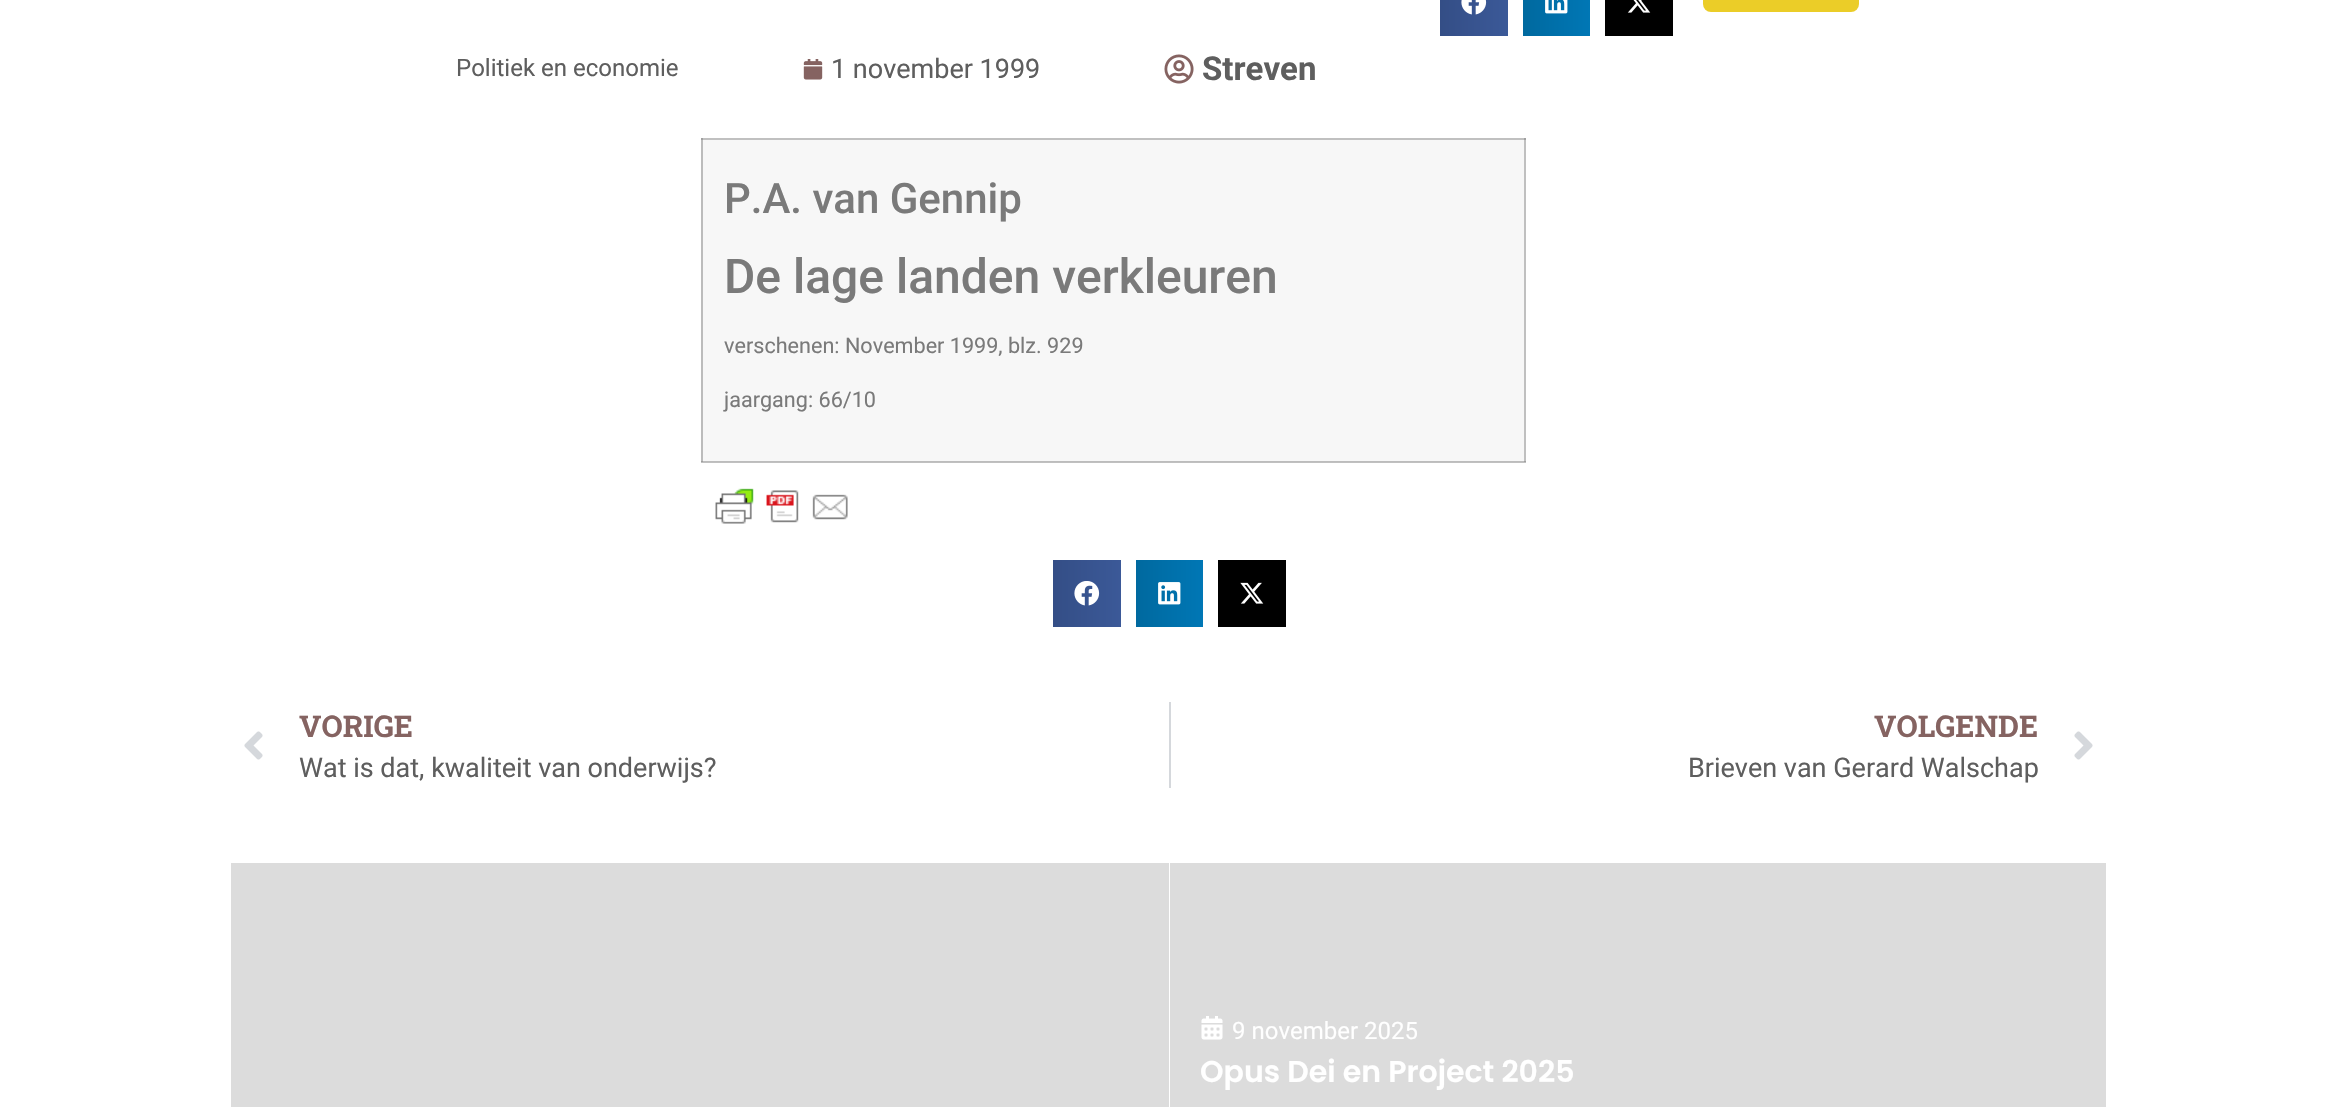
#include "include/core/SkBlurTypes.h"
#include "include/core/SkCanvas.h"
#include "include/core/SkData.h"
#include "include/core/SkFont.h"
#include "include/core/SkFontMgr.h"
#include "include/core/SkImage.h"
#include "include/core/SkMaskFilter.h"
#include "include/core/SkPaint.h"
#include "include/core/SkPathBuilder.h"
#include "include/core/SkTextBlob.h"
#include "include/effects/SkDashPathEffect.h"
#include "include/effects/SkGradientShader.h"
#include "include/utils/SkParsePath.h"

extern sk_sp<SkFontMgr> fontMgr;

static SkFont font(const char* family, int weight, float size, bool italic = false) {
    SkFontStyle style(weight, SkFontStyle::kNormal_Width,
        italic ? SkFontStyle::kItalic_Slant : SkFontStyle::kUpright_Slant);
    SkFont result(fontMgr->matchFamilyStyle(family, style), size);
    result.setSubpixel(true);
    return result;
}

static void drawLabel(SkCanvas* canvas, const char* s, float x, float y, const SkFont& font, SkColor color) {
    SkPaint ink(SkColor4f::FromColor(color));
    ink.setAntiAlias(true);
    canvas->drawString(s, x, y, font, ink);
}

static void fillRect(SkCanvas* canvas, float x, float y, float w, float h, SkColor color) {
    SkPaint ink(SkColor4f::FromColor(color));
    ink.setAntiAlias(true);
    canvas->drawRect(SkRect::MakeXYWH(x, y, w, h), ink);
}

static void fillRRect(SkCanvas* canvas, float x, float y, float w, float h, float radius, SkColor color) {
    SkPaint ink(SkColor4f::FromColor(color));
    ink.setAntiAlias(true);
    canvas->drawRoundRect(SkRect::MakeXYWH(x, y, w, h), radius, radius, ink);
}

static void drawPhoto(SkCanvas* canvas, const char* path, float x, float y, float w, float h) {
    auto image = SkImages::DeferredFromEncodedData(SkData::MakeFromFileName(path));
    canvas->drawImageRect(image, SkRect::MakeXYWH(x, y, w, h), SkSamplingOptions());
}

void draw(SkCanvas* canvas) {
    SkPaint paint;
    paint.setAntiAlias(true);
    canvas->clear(0xFFFFFFFF);
    fillRect(canvas, 701, 462, 825, 1, 0xFFC0C0C0);
    fillRect(canvas, 1524, 138, 2, 324, 0xFFC0C0C0);
    fillRect(canvas, 1524, 461, 2, 1, 0xFFA0A0A0);
    fillRRect(canvas, 1703, -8, 156, 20, 8, 0xFFEBCD28);
    {
        const SkColor colors[] = {0xFF344E86, 0xFF3B5998};
        const float stops[] = {0, 1};
        const SkPoint ends[] = {{1440, 2.3f}, {1508, 2.2f}};
        paint.setShader(SkGradientShader::MakeLinear(ends, colors, stops, 2, SkTileMode::kClamp));
        paint.setAlpha(255);
    }
    canvas->drawRect(SkRect::MakeXYWH(1440, 0, 68, 36), paint);
    drawPhoto(canvas, "assets/img1.png", 1461, 0, 26, 15);
    {
        const SkColor colors[] = {0xFF00699F, 0xFF0077B5};
        const float stops[] = {0, 1};
        const SkPoint ends[] = {{1523, 2.3f}, {1590, 2.2f}};
        paint.setShader(SkGradientShader::MakeLinear(ends, colors, stops, 2, SkTileMode::kClamp));
        paint.setAlpha(255);
    }
    canvas->drawRect(SkRect::MakeXYWH(1523, 0, 67, 36), paint);
    drawPhoto(canvas, "assets/img2.png", 1545, 0, 23, 14);
    fillRect(canvas, 1605, 0, 68, 36, 0xFF000000);
    drawPhoto(canvas, "assets/img3.png", 1627, 0, 24, 13);
    SkFont font1 = font("Roboto", 400, 24);
    drawLabel(canvas, "Politiek en economie", 456, 76, font1, 0xFF5E5E5E);
    drawPhoto(canvas, "assets/img4.png", 803, 59, 20, 21);
    SkFont font2 = font("Roboto", 400, 27);
    drawLabel(canvas, "1 november 1999", 831, 78, font2, 0xFF5E5E5E);
    drawPhoto(canvas, "assets/img5.png", 1164, 54, 30, 30);
    SkFont font3 = font("Roboto", 700, 33);
    drawLabel(canvas, "Streven", 1202, 80, font3, 0xFF5E5E5E);
    fillRect(canvas, 703, 140, 821, 321, 0xFFF7F7F7);
    fillRect(canvas, 701, 140, 2, 322, 0xFFBCBCBC);
    fillRect(canvas, 701, 461, 823, 1, 0xFFBCBCBC);
    fillRect(canvas, 701, 461, 2, 1, 0xFF9E9E9E);
    fillRect(canvas, 701, 138, 825, 2, 0xFFC0C0C0);
    fillRect(canvas, 701, 138, 2, 2, 0xFFA0A0A0);
    fillRect(canvas, 1524, 138, 2, 2, 0xFFA0A0A0);
    SkFont font4 = font("Roboto", 500, 42);
    drawLabel(canvas, "P.A. van Gennip", 724, 213, font4, 0xFF7A7A7A);
    SkFont font5 = font("Roboto", 500, 48);
    drawLabel(canvas, "De lage landen verkleuren", 724, 293, font5, 0xFF7A7A7A);
    SkFont font6 = font("Roboto", 400, 21.6f);
    drawLabel(canvas, "verschenen: November 1999, blz. 929", 724, 353, font6, 0xFF7A7A7A);
    drawLabel(canvas, "jaargang: 66/10", 724, 407, font6, 0xFF7A7A7A);
    drawPhoto(canvas, "assets/img6.png", 715, 488, 133, 36);
    {
        const SkColor colors[] = {0xFF344E86, 0xFF3B5998};
        const float stops[] = {0, 1};
        const SkPoint ends[] = {{1053, 593}, {1121, 593}};
        paint.setShader(SkGradientShader::MakeLinear(ends, colors, stops, 2, SkTileMode::kClamp));
        paint.setAlpha(255);
    }
    canvas->drawRect(SkRect::MakeXYWH(1053, 560, 68, 67), paint);
    drawPhoto(canvas, "assets/img7.png", 1074, 581, 26, 25);
    {
        const SkColor colors[] = {0xFF00699F, 0xFF0077B5};
        const float stops[] = {0, 1};
        const SkPoint ends[] = {{1136, 593}, {1203, 593}};
        paint.setShader(SkGradientShader::MakeLinear(ends, colors, stops, 2, SkTileMode::kClamp));
        paint.setAlpha(255);
    }
    canvas->drawRect(SkRect::MakeXYWH(1136, 560, 67, 67), paint);
    drawPhoto(canvas, "assets/img8.png", 1158, 582, 23, 23);
    fillRect(canvas, 1218, 560, 68, 67, 0xFF000000);
    drawPhoto(canvas, "assets/img9.png", 1240, 582, 24, 22);
    drawPhoto(canvas, "assets/img10.png", 244, 731, 19, 29);
    SkFont font7 = font("Roboto Slab", 700, 30);
    drawLabel(canvas, "VORIGE", 299, 737, font7, 0xFF856361);
    drawLabel(canvas, "Wat is dat, kwaliteit van onderwijs?", 299, 777, font2, 0xFF5E5E5E);
    fillRect(canvas, 1169, 702, 2, 86, 0xFFD5D8DC);
    drawLabel(canvas, "VOLGENDE", 1874, 737, font7, 0xFF856361);
    drawLabel(canvas, "Brieven van Gerard Walschap", 1688, 777, font2, 0xFF5E5E5E);
    drawPhoto(canvas, "assets/img11.png", 2074, 731, 19, 29);
    fillRect(canvas, 231, 863, 938, 244, 0xFFDCDCDC);
    fillRect(canvas, 1170, 863, 936, 244, 0xFFDCDCDC);
    drawPhoto(canvas, "assets/img12.png", 1201, 1016, 22, 24);
    drawLabel(canvas, "9 november 2025", 1232, 1039, font1, 0xFFFFFFFF);
    SkFont font8 = font("Poppins", 600, 30);
    drawLabel(canvas, "Opus Dei en Project 2025", 1200, 1082, font8, 0xFFFFFFFF);
}
